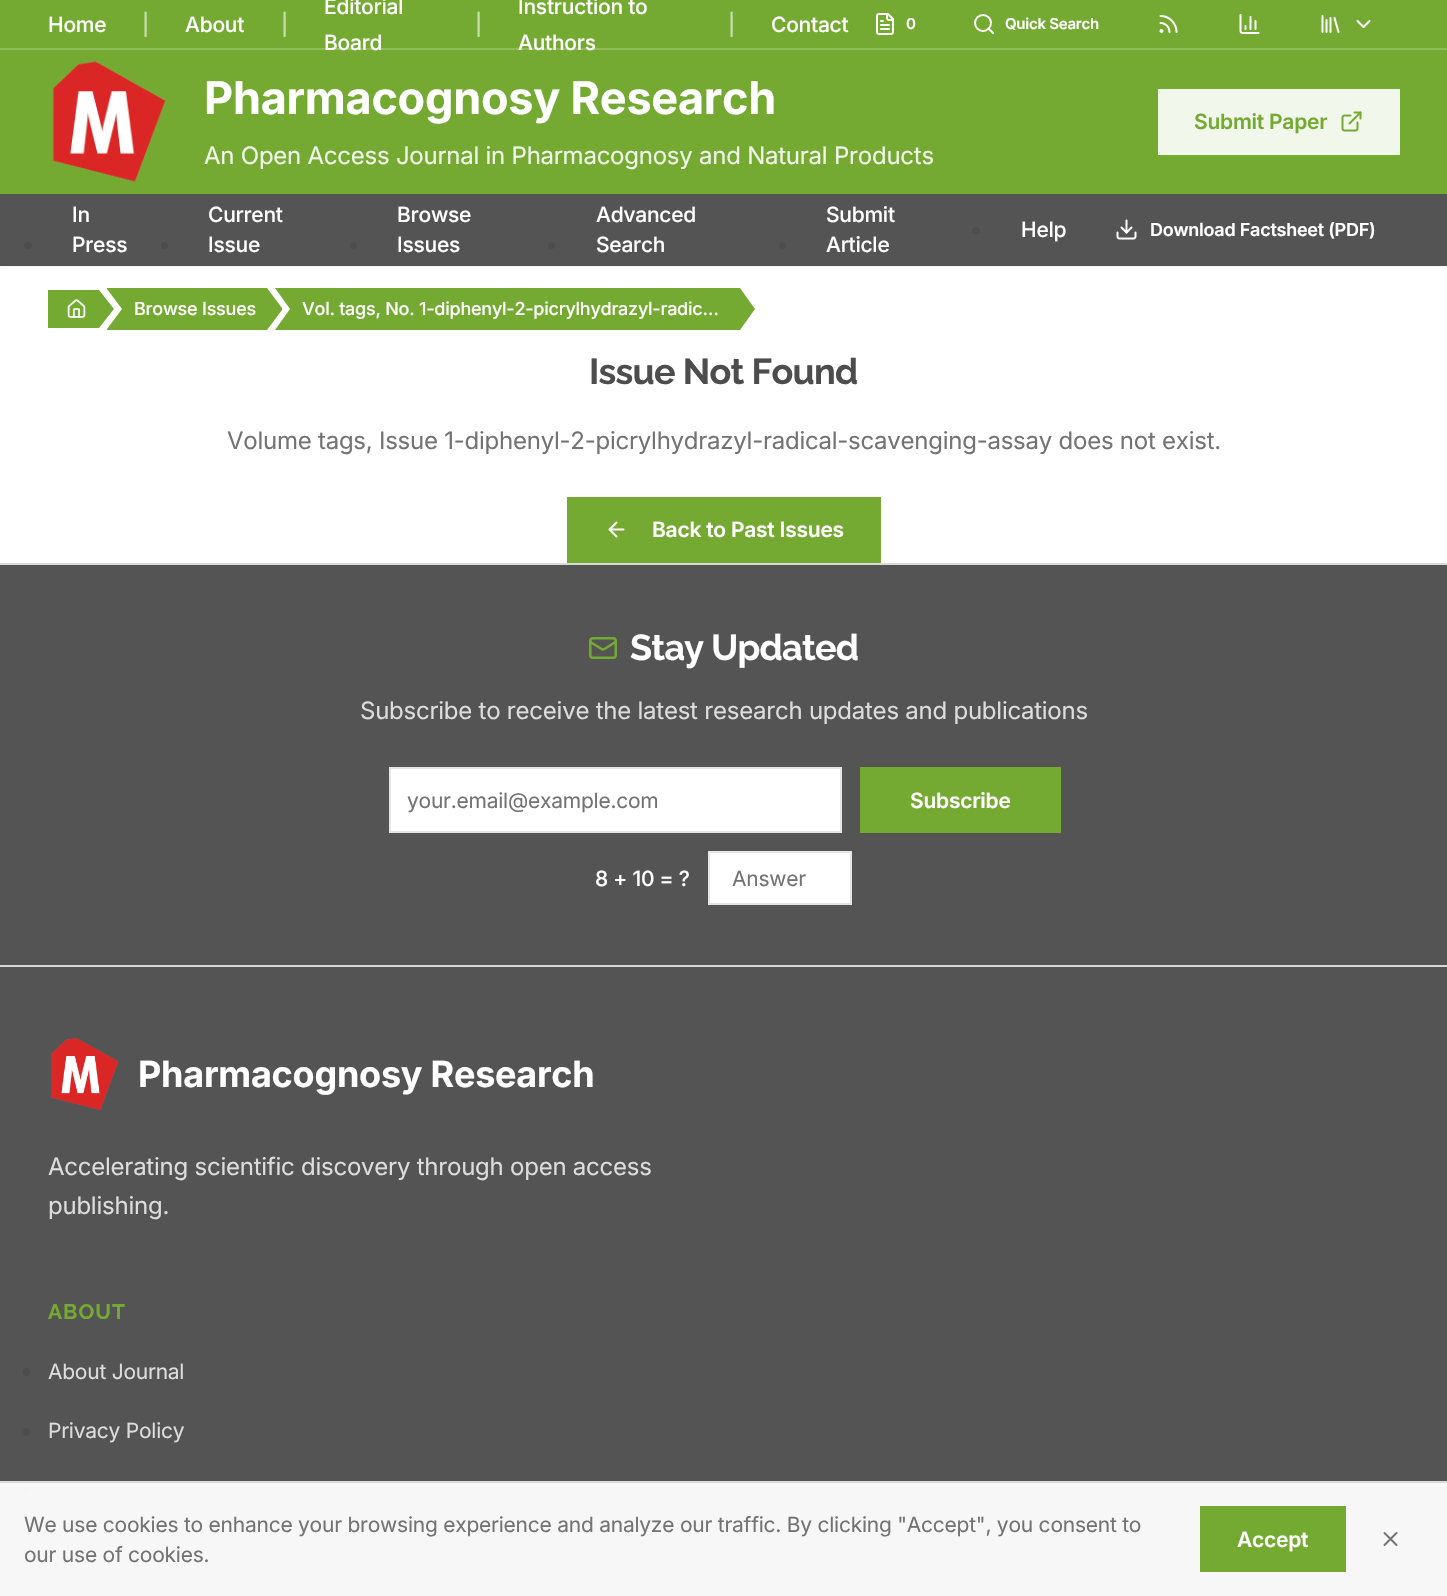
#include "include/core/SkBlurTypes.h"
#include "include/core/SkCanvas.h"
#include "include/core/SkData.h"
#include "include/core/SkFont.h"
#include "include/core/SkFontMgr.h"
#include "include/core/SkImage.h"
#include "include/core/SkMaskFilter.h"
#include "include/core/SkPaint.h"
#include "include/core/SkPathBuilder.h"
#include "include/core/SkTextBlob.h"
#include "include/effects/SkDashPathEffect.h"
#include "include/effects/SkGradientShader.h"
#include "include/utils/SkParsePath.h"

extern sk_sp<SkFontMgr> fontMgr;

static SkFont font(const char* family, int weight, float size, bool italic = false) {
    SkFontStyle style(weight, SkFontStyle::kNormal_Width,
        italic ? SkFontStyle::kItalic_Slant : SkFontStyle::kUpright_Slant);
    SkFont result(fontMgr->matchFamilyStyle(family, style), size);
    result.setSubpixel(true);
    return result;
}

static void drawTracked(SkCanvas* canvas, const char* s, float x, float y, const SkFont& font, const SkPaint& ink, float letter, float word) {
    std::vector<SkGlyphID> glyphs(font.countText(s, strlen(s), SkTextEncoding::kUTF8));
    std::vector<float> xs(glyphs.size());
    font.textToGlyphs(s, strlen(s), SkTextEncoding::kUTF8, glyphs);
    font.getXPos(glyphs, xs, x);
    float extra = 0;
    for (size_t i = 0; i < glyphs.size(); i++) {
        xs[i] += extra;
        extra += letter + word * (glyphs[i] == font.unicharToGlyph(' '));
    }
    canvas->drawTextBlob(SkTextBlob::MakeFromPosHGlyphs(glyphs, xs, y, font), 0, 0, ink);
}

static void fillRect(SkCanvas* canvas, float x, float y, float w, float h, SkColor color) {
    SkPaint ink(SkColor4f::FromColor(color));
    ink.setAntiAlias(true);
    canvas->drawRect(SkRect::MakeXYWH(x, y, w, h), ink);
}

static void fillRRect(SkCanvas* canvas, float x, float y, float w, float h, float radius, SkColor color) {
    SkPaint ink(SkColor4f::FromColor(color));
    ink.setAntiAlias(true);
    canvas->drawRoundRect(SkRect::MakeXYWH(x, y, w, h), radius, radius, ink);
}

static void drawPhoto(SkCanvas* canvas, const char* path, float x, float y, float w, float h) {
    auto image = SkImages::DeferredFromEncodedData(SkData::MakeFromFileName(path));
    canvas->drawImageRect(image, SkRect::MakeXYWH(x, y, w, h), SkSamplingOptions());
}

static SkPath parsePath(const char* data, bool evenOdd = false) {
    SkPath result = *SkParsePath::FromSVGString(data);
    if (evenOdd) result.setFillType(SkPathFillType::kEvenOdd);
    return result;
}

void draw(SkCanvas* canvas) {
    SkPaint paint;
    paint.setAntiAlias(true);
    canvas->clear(0xFFFFFFFF);
    paint.setColor(0x0D000000);
    paint.setMaskFilter(SkMaskFilter::MakeBlur(kNormal_SkBlurStyle, 1.5f));
    canvas->drawRect(SkRect::MakeXYWH(0, 2, 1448, 265), paint);
    paint.setMaskFilter(nullptr);
    fillRect(canvas, 0, 0, 1447, 48, 0xFF74AA31);
    fillRect(canvas, 0, 48, 1447, 2, 0xFF90BB5A);
    SkFont font1 = font("Inter", 500, 21);
    paint.setColor(0xFFFFFFFF);
    drawTracked(canvas, "Home", 48, 32, font1, paint, -0.24f, 0);
    paint.setColor(0xFFC7DDAD);
    drawTracked(canvas, "|", 142, 32, font1, paint, -0.24f, 0);
    paint.setColor(0xFFFFFFFF);
    drawTracked(canvas, "About", 185, 32, font1, paint, -0.24f, 0);
    paint.setColor(0xFFC7DDAD);
    drawTracked(canvas, "|", 281, 32, font1, paint, -0.24f, 0);
    paint.setColor(0xFFFFFFFF);
    drawTracked(canvas, "Editorial", 324, 14, font1, paint, -0.24f, 0);
    fillRect(canvas, 0, 50, 1447, 144, 0xFF74AA31);
    drawTracked(canvas, "Board", 324, 50, font1, paint, -0.24f, 0);
    paint.setColor(0xFFC7DDAD);
    drawTracked(canvas, "|", 475, 32, font1, paint, -0.24f, 0);
    paint.setColor(0xFFFFFFFF);
    drawTracked(canvas, "Instruction to", 518, 14, font1, paint, -0.24f, 0);
    drawTracked(canvas, "Authors", 518, 50, font1, paint, -0.24f, 0);
    paint.setColor(0xFFC7DDAD);
    drawTracked(canvas, "|", 728, 32, font1, paint, -0.24f, 0);
    paint.setColor(0xFFFFFFFF);
    drawTracked(canvas, "Contact", 771, 32, font1, paint, -0.24f, 0);
    drawPhoto(canvas, "assets/img1.png", 876, 13, 18, 22);
    SkFont font2 = font("Inter", 600, 15);
    drawTracked(canvas, "0", 906, 29, font2, paint, -0.24f, 0);
    paint.setStroke(true);
    paint.setStrokeWidth(2);
    canvas->drawCircle(983, 23, 8, paint);
    paint.setStrokeCap(SkPaint::kRound_Cap);
    paint.setStrokeJoin(SkPaint::kRound_Join);
    canvas->drawPath(parsePath("M993 33L988.5 28.5"), paint);
    paint.setStroke(false);
    drawTracked(canvas, "Quick Search", 1005, 29, font2, paint, -0.24f, 0);
    drawPhoto(canvas, "assets/img2.png", 1159, 15, 19, 18);
    drawPhoto(canvas, "assets/img3.png", 1239, 14, 21, 20);
    drawPhoto(canvas, "assets/img4.png", 1321, 15, 19, 18);
    paint.setStroke(true);
    canvas->drawPath(parsePath("M1357.5 21L1363.5 27L1369.5 21"), paint);
    drawPhoto(canvas, "assets/img5.png", 52, 61, 114, 121);
    SkFont font3 = font("Inter", 700, 45);
    paint.setStroke(false);
    drawTracked(canvas, "Pharmacognosy Research", 204, 114, font3, paint, -0.24f, 0);
    SkFont font4 = font("Inter", 400, 24);
    paint.setColor(0xFFF1F7EA);
    drawTracked(canvas, "An Open Access Journal in Pharmacognosy and Natural Products", 204, 164, font4, paint, -0.24f, 0);
    fillRect(canvas, 1158, 89, 242, 66, 0xFFF1F7EA);
    SkFont font5 = font("Inter", 600, 21);
    paint.setColor(0xFF74AA31);
    drawTracked(canvas, "Submit Paper", 1194, 129, font5, paint, -0.24f, 0);
    drawPhoto(canvas, "assets/img6.png", 1341, 111, 21, 21);
    fillRect(canvas, 0, 194, 1447, 72, 0xFF545454);
    fillRRect(canvas, 24, 242, 8, 7, 3.5f, 0xFF4D4D4D);
    paint.setColor(0xFFFFFFFF);
    drawTracked(canvas, "In", 72, 222, font1, paint, -0.24f, 0);
    drawTracked(canvas, "Press", 72, 252, font1, paint, -0.24f, 0);
    paint.setColor(0xFF4D4D4D);
    canvas->drawCircle(164.5f, 245.5f, 3.5f, paint);
    paint.setColor(0xFFFFFFFF);
    drawTracked(canvas, "Current", 208, 222, font1, paint, -0.24f, 0);
    drawTracked(canvas, "Issue", 208, 252, font1, paint, -0.24f, 0);
    paint.setColor(0xFF4D4D4D);
    canvas->drawCircle(353.5f, 245.5f, 3.5f, paint);
    paint.setColor(0xFFFFFFFF);
    drawTracked(canvas, "Browse", 397, 222, font1, paint, -0.24f, 0);
    drawTracked(canvas, "Issues", 397, 252, font1, paint, -0.24f, 0);
    paint.setColor(0xFF4D4D4D);
    canvas->drawCircle(551.5f, 245.5f, 3.5f, paint);
    paint.setColor(0xFFFFFFFF);
    drawTracked(canvas, "Advanced", 596, 222, font1, paint, -0.24f, 0);
    drawTracked(canvas, "Search", 596, 252, font1, paint, -0.24f, 0);
    paint.setColor(0xFF4D4D4D);
    canvas->drawCircle(782.5f, 245.5f, 3.5f, paint);
    paint.setColor(0xFFFFFFFF);
    drawTracked(canvas, "Submit", 826, 222, font1, paint, -0.24f, 0);
    drawTracked(canvas, "Article", 826, 252, font1, paint, -0.24f, 0);
    fillRRect(canvas, 972, 227, 8, 7, 3.5f, 0xFF4D4D4D);
    drawTracked(canvas, "Help", 1021, 237, font1, paint, -0.24f, 0);
    drawPhoto(canvas, "assets/img7.png", 1116, 219, 21, 21);
    SkFont font6 = font("Inter", 600, 18);
    drawTracked(canvas, "Download Factsheet (PDF)", 1150, 236, font6, paint, -0.24f, 0);
    paint.setColor(0xFF74AA31);
    canvas->drawPath(parsePath("M48 290V328H99L114 309L99 290Z"), paint);
    drawPhoto(canvas, "assets/img8.png", 67, 299, 19, 19);
    canvas->drawPath(parsePath("M107 288H267L282 308V310L267 330H107V329L122 309L107 289Z"), paint);
    SkFont font7 = font("Inter", 500, 18);
    paint.setColor(0xFFFFFFFF);
    drawTracked(canvas, "Browse Issues", 134, 315, font7, paint, -0.24f, 0);
    paint.setColor(0xFF74AA31);
    canvas->drawPath(parsePath("M275 288H740L755 309L740 330H275L290 309Z"), paint);
    paint.setColor(0xFFFFFFFF);
    drawTracked(canvas, "Vol. tags, No. 1-diphenyl-2-picrylhydrazyl-radic…", 302, 315, font7, paint, -0.24f, 0);
    SkFont font8 = font("Raleway", 700, 36);
    paint.setColor(0xFF4D4D4D);
    drawTracked(canvas, "Issue Not Found", 589, 384, font8, paint, -0.75f, 0);
    paint.setColor(0xFF737373);
    drawTracked(canvas, "Volume tags, Issue 1-diphenyl-2-picrylhydrazyl-radical-scavenging-assay does not exist.", 227, 449, font4, paint, -0.24f, 0);
    fillRect(canvas, 567, 497, 314, 66, 0xFF74AA31);
    paint.setStroke(true);
    paint.setColor(0xFFFFFFFF);
    canvas->drawPath(parsePath("M616.5 536.5L609.5 529.5L616.5 522.5M623.5 529.5H609.5"), paint);
    paint.setStroke(false);
    drawTracked(canvas, "Back to Past Issues", 652, 537, font5, paint, -0.24f, 0);
    fillRect(canvas, 0, 565, 1447, 1031, 0xFF545454);
    fillRect(canvas, 0, 563, 1447, 2, 0xFFD9D9D9);
    fillRect(canvas, 0, 965, 1447, 2, 0xFFD9D9D9);
    paint.setStroke(true);
    paint.setStrokeWidth(2.5f);
    paint.setStrokeCap(SkPaint::kButt_Cap);
    paint.setStrokeJoin(SkPaint::kMiter_Join);
    paint.setColor(0xFF74AA31);
    canvas->drawRoundRect(SkRect::MakeXYWH(590.25f, 638.25f, 25.5f, 19.5f), 2.75f, 2.75f, paint);
    paint.setStrokeCap(SkPaint::kRound_Cap);
    paint.setStrokeJoin(SkPaint::kRound_Join);
    canvas->drawPath(parsePath("M615.5 642L604.5 649C603.5 649.5 602.5 649.5 601.5 649L590.5 642"), paint);
    paint.setStroke(false);
    paint.setColor(0xFFFFFFFF);
    drawTracked(canvas, "Stay Updated", 630, 660, font8, paint, -0.75f, 0);
    paint.setColor(0xFFDDDDDD);
    drawTracked(canvas, "Subscribe to receive the latest research updates and publications", 360, 719, font4, paint, -0.24f, 0);
    paint.setColor(0xFFFFFFFF);
    canvas->drawRect(SkRect::MakeXYWH(390, 768, 451, 64), paint);
    paint.setStroke(true);
    paint.setStrokeWidth(2);
    paint.setStrokeCap(SkPaint::kButt_Cap);
    paint.setStrokeJoin(SkPaint::kMiter_Join);
    paint.setColor(0xFFE6E6E6);
    canvas->drawRect(SkRect::MakeXYWH(390, 768, 451, 64), paint);
    SkFont font9 = font("Inter", 400, 21);
    paint.setStroke(false);
    paint.setColor(0xFF737373);
    drawTracked(canvas, "your.email@example.com", 407, 808, font9, paint, -0.24f, 0);
    fillRect(canvas, 860, 767, 201, 66, 0xFF74AA31);
    paint.setColor(0xFFFFFFFF);
    drawTracked(canvas, "Subscribe", 910, 808, font5, paint, -0.24f, 0);
    drawTracked(canvas, "8 + 10 = ?", 595, 886, font1, paint, -0.24f, 0);
    canvas->drawRect(SkRect::MakeXYWH(709, 852, 142, 52), paint);
    paint.setStroke(true);
    paint.setColor(0xFFE6E6E6);
    canvas->drawRect(SkRect::MakeXYWH(709, 852, 142, 52), paint);
    paint.setStroke(false);
    paint.setColor(0xFF737373);
    drawTracked(canvas, "Answer", 732, 886, font9, paint, -0.24f, 0);
    drawPhoto(canvas, "assets/img9.png", 51, 1038, 68, 72);
    SkFont font10 = font("Inter", 700, 36);
    paint.setColor(0xFFFFFFFF);
    drawTracked(canvas, "Pharmacognosy Research", 138, 1087, font10, paint, -0.24f, 0);
    paint.setColor(0xFFDDDDDD);
    drawTracked(canvas, "Accelerating scientific discovery through open access", 48, 1175, font4, paint, -0.24f, 0);
    drawTracked(canvas, "publishing.", 48, 1214, font4, paint, -0.24f, 0);
    SkFont font11 = font("Raleway", 700, 21);
    paint.setColor(0xFF74AA31);
    drawTracked(canvas, "ABOUT", 48, 1319, font11, paint, 1, 0);
    fillRRect(canvas, 23, 1368, 7, 8, 3.5f, 0xFF4D4D4D);
    paint.setColor(0xFFDDDDDD);
    drawTracked(canvas, "About Journal", 48, 1379, font9, paint, -0.24f, 0);
    fillRRect(canvas, 23, 1428, 7, 8, 3.5f, 0xFF4D4D4D);
    drawTracked(canvas, "Privacy Policy", 48, 1438, font9, paint, -0.24f, 0);
    paint.setColor(0xFF4D4D4D);
    canvas->drawCircle(26.5f, 1490.5f, 3.5f, paint);
    fillRRect(canvas, 23, 1545, 7, 8, 3.5f, 0xFF4D4D4D);
    fillRect(canvas, 0, 1483, 1447, 113, 0xF2FFFFFF);
    fillRect(canvas, 0, 1481, 1447, 2, 0xFFD9D9D9);
    paint.setColor(0xFF737373);
    drawTracked(canvas, "We use cookies to enhance your browsing experience and analyze our traffic. By clicking \"Accept\", you consent to", 24, 1532, font9, paint, -0.24f, 0);
    drawTracked(canvas, "our use of cookies.", 24, 1562, font9, paint, -0.24f, 0);
    fillRect(canvas, 1200, 1506, 146, 66, 0xFF74AA31);
    paint.setColor(0xFFFFFFFF);
    drawTracked(canvas, "Accept", 1237, 1547, font5, paint, -0.24f, 0);
    paint.setStroke(true);
    paint.setStrokeCap(SkPaint::kRound_Cap);
    paint.setStrokeJoin(SkPaint::kRound_Join);
    paint.setColor(0xFF737373);
    canvas->drawPath(parsePath("M1396.5 1533L1384.5 1545M1384.5 1533L1396.5 1545"), paint);
}
